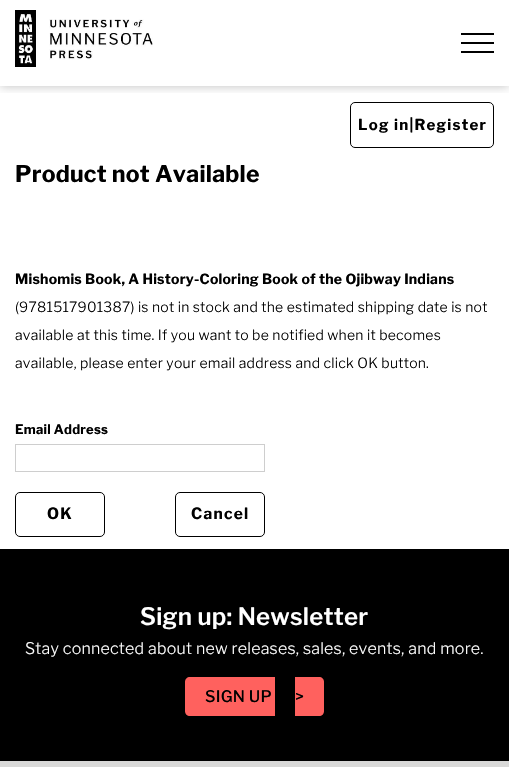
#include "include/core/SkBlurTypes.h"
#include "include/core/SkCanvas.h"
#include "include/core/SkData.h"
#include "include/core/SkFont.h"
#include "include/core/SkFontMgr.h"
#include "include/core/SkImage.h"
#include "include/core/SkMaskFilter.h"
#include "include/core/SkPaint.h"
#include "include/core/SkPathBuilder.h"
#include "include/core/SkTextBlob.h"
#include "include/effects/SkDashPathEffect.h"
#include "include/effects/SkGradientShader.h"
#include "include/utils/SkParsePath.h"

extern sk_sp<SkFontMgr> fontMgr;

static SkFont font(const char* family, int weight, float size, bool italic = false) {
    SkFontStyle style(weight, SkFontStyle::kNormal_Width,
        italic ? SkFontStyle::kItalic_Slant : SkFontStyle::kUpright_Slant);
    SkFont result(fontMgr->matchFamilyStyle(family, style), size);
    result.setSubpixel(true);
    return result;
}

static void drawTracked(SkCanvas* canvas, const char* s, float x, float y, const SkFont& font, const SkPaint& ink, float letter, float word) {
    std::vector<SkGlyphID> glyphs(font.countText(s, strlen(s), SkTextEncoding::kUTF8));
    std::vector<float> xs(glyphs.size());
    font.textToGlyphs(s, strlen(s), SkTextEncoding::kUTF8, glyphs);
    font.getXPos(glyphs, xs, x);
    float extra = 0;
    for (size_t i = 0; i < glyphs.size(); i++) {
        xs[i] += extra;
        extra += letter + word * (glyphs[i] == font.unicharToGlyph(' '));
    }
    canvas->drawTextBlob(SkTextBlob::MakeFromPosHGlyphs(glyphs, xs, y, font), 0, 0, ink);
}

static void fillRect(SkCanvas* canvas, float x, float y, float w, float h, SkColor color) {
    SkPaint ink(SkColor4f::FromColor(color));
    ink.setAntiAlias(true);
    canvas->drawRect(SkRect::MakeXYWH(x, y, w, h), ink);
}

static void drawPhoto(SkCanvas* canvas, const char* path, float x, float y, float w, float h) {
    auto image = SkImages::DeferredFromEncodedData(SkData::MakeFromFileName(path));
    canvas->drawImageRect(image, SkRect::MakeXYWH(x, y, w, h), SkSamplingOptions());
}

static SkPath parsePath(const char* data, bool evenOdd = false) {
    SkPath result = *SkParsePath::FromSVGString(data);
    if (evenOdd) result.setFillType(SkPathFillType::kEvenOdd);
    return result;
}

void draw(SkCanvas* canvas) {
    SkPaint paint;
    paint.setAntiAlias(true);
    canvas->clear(0xFFFFFFFF);
    canvas->save();
    canvas->clipRect(SkRect::MakeXYWH(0, 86, 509, 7));
    paint.setColor(0x40000000);
    paint.setMaskFilter(SkMaskFilter::MakeBlur(kNormal_SkBlurStyle, 5));
    canvas->drawRect(SkRect::MakeXYWH(0, 0, 509, 86), paint);
    paint.setMaskFilter(nullptr);
    canvas->restore();
    drawPhoto(canvas, "assets/img1.png", 15, 10, 138, 57);
    fillRect(canvas, 461, 42, 33, 2, 0xFF000000);
    fillRect(canvas, 461, 33, 33, 2, 0xFF000000);
    fillRect(canvas, 461, 51, 33, 2, 0xFF000000);
    paint.setStroke(true);
    paint.setStrokeWidth(1);
    paint.setColor(0xFF000000);
    canvas->drawRoundRect(SkRect::MakeXYWH(350.5f, 102.5f, 143, 45), 4.5f, 4.5f, paint);
    SkFont font1 = font("Libre Franklin", 700, 15);
    paint.setStroke(false);
    drawTracked(canvas, "Log in|Register", 358, 130, font1, paint, 1.25f, 0);
    SkFont font2 = font("Libre Franklin", 700, 23);
    drawTracked(canvas, "Product not Available", 15, 182, font2, paint, 0.23f, 0);
    SkFont font3 = font("Libre Franklin", 700, 14);
    drawTracked(canvas, "Mishomis Book, A History-Coloring Book of the Ojibway Indians", 15, 284, font3, paint, 0.23f, 0);
    SkFont font4 = font("Libre Franklin", 300, 14);
    drawTracked(canvas, "(9781517901387) is not in stock and the estimated shipping date is not", 15, 312, font4, paint, 0.23f, 0);
    drawTracked(canvas, "available at this time. If you want to be notified when it becomes", 15, 340, font4, paint, 0.23f, 0);
    drawTracked(canvas, "available, please enter your email address and click OK button.", 15, 368, font4, paint, 0.23f, 0);
    SkFont font5 = font("Libre Franklin", 700, 13);
    drawTracked(canvas, "Email Address", 15, 434, font5, paint, 0.23f, 0);
    paint.setStroke(true);
    paint.setColor(0xFFCECECE);
    canvas->drawRect(SkRect::MakeXYWH(15.5f, 444.5f, 249, 27), paint);
    paint.setColor(0xFF000000);
    canvas->drawRoundRect(SkRect::MakeXYWH(15.5f, 492.5f, 89, 44), 4.5f, 4.5f, paint);
    SkFont font6 = font("Libre Franklin", 700, 15.5f);
    paint.setStroke(false);
    drawTracked(canvas, "OK", 47, 519, font6, paint, 1.25f, 0);
    paint.setStroke(true);
    canvas->drawRoundRect(SkRect::MakeXYWH(175.5f, 492.5f, 89, 44), 4.5f, 4.5f, paint);
    paint.setStroke(false);
    drawTracked(canvas, "Cancel", 191, 519, font6, paint, 1.25f, 0);
    fillRect(canvas, 0, 549, 509, 212, 0xFF000000);
    SkFont font7 = font("Libre Franklin", 600, 24);
    paint.setColor(0xFFFFFFFF);
    drawTracked(canvas, "Sign up: Newsletter", 140, 625, font7, paint, 0.23f, 0);
    SkFont font8 = font("Libre Franklin", 300, 16);
    drawTracked(canvas, "Stay connected about new releases, sales, events, and more.", 25, 654, font8, paint, 0.23f, 0);
    paint.setColor(0xFFFF615E);
    canvas->drawPath(parsePath("M190 677H275V716H190C187 716 185 714 185 711V682C185 679 187 677 190 677Z"), paint);
    SkFont font9 = font("Libre Franklin", 500, 16);
    paint.setColor(0xFF000000);
    drawTracked(canvas, "SIGN UP", 205, 702, font9, paint, 0.23f, 0);
    paint.setColor(0xFFFF615E);
    canvas->drawPath(parsePath("M295 677H319C322 677 324 679 324 682V711C324 714 322 716 319 716H295Z"), paint);
    paint.setColor(0xFF000000);
    drawTracked(canvas, ">", 295, 702, font9, paint, 0.23f, 0);
    fillRect(canvas, 0, 761, 509, 6, 0xFFD9D9D8);
}
